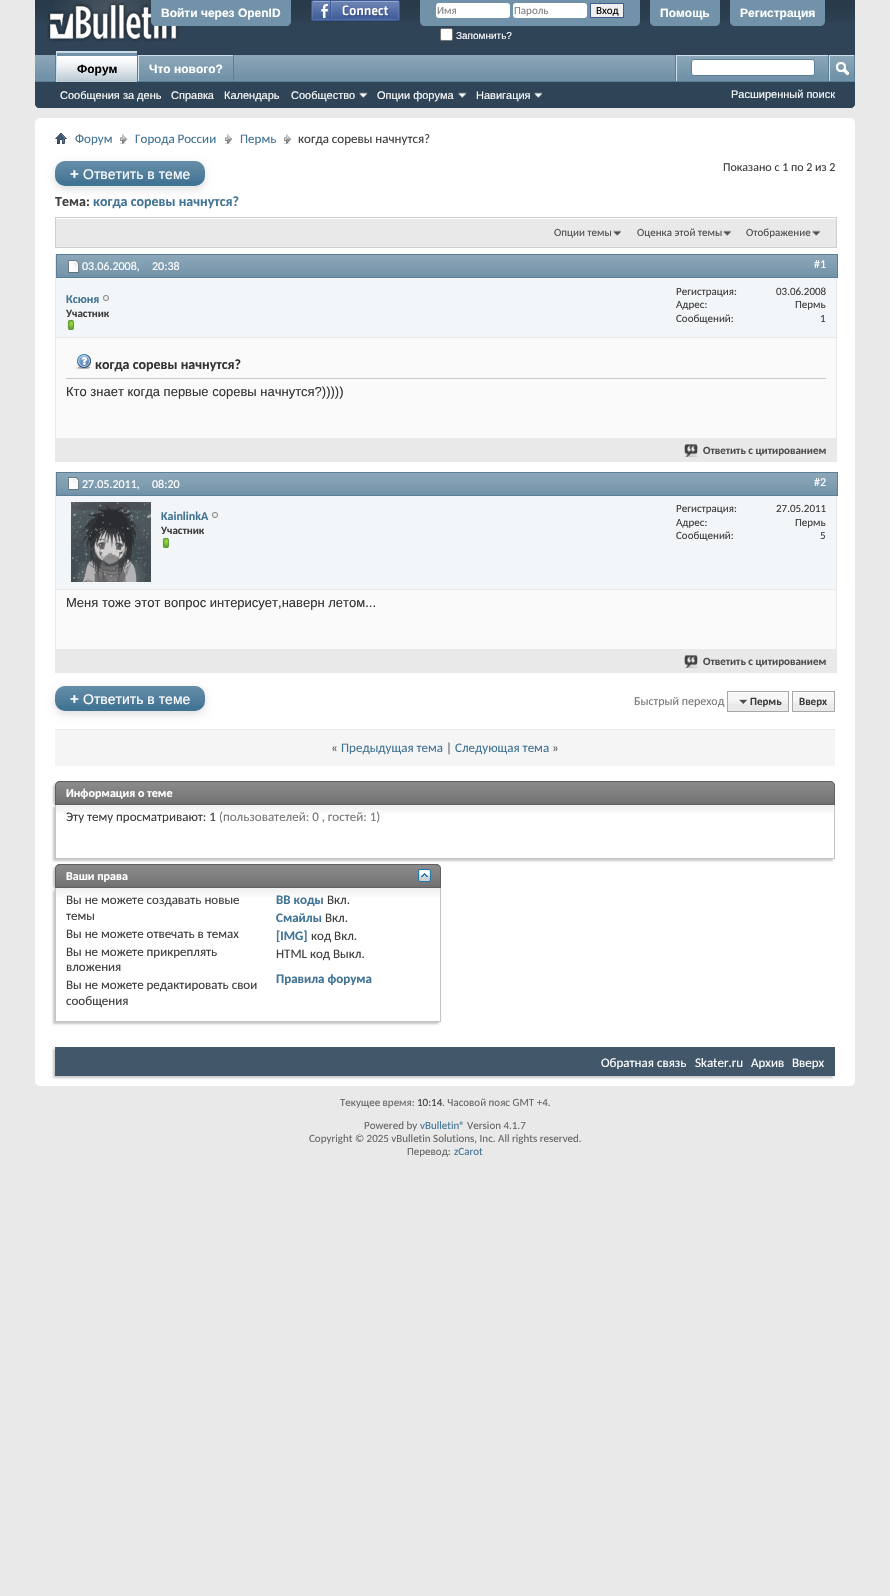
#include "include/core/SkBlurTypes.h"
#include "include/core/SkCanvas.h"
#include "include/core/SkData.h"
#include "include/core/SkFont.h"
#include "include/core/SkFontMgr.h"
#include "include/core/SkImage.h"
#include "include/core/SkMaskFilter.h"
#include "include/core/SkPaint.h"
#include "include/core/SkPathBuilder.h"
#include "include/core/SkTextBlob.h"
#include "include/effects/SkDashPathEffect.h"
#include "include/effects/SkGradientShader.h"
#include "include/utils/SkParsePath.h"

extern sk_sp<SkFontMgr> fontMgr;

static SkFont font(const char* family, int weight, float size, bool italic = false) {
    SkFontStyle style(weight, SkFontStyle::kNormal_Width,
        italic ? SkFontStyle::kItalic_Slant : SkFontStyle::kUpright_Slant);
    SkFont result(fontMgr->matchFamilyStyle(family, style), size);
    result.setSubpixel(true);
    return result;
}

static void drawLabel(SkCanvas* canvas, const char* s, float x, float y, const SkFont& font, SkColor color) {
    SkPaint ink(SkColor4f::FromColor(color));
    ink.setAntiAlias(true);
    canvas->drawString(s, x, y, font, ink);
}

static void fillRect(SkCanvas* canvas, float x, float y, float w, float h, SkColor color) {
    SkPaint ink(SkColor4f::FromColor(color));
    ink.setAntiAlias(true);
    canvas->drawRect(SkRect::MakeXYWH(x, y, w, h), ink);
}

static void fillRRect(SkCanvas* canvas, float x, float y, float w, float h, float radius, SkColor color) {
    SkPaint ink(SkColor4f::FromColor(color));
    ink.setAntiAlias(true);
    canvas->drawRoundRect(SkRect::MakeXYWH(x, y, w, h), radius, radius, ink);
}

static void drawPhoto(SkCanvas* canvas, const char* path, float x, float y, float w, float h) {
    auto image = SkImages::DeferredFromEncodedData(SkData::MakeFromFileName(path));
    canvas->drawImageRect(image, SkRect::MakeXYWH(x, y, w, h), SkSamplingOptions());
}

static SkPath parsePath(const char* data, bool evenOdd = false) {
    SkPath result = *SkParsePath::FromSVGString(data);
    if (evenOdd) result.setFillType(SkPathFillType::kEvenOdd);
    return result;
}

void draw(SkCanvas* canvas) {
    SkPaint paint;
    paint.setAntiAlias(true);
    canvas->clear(0xFFE9E9E9);
    paint.setColor(0xFF2F4456);
    canvas->drawPath(parsePath("M35 0H855V103C855 106 853 108 850 108H40C37 108 35 106 35 103Z"), paint);
    drawPhoto(canvas, "assets/img1.png", 35, 0, 820, 22);
    drawPhoto(canvas, "assets/img2.png", 47, 0, 133, 42);
    paint.setColor(0xFF7192A8);
    canvas->drawPath(parsePath("M151 0H291V21C291 24 289 26 286 26H156C153 26 151 24 151 21Z"), paint);
    SkFont font1 = font("Liberation Sans", 700, 12);
    drawLabel(canvas, "Войти через OpenID", 161, 17, font1, 0xFFFFFFFF);
    drawPhoto(canvas, "assets/img3.png", 311, 0, 89, 21);
    canvas->drawPath(parsePath("M420 0H640V21C640 24 638 26 635 26H425C422 26 420 24 420 21Z"), paint);
    fillRRect(canvas, 436, 3, 74, 15, 3, 0xFFFFFFFF);
    SkFont font2 = font("Carlito", 400, 11);
    drawLabel(canvas, "Имя", 437, 14, font2, 0xFF828282);
    fillRRect(canvas, 513, 3, 74, 15, 3, 0xFFFFFFFF);
    drawLabel(canvas, "Пароль", 514, 14, font2, 0xFF828282);
    paint.setColor(0xFFEFEFEF);
    canvas->drawRect(SkRect::MakeXYWH(590.5f, 3.5f, 33, 14), paint);
    paint.setStroke(true);
    paint.setStrokeWidth(1);
    paint.setColor(0xFF415D8D);
    canvas->drawRect(SkRect::MakeXYWH(590.5f, 3.5f, 33, 14), paint);
    drawLabel(canvas, "Вход", 596, 14, font2, 0xFF000000);
    paint.setStroke(false);
    paint.setColor(0xFFFFFFFF);
    canvas->drawRoundRect(SkRect::MakeXYWH(440.5f, 28.5f, 12, 12), 1.5f, 1.5f, paint);
    paint.setStroke(true);
    paint.setColor(0xFF767676);
    canvas->drawRoundRect(SkRect::MakeXYWH(440.5f, 28.5f, 12, 12), 1.5f, 1.5f, paint);
    SkFont font3 = font("Liberation Sans", 400, 10);
    drawLabel(canvas, "Запомнить?", 456, 39, font3, 0xFFFFFFFF);
    paint.setStroke(false);
    paint.setColor(0xFF7192A8);
    canvas->drawPath(parsePath("M650 0H720V21C720 24 718 26 715 26H655C652 26 650 24 650 21Z"), paint);
    drawLabel(canvas, "Помощь", 660, 17, font1, 0xFFFFFFFF);
    canvas->drawPath(parsePath("M730 0H825V21C825 24 823 26 820 26H735C732 26 730 24 730 21Z"), paint);
    drawLabel(canvas, "Регистрация", 740, 17, font1, 0xFFFFFFFF);
    paint.setColor(0xFF2F4456);
    canvas->drawPath(parsePath("M35 55H855V103C855 106 853 108 850 108H40C37 108 35 106 35 103Z"), paint);
    fillRect(canvas, 35, 55, 819, 26, 0xFF7192A8);
    drawPhoto(canvas, "assets/img4.png", 35, 55, 819, 20);
    fillRect(canvas, 137, 55, 1, 26, 0xFF5A7F97);
    fillRect(canvas, 55, 55, 1, 26, 0xFF5A7F97);
    fillRect(canvas, 233, 55, 1, 27, 0xFF5A7F97);
    fillRect(canvas, 138, 55, 95, 1, 0xFFCEDFEB);
    fillRect(canvas, 138, 55, 1, 27, 0xFFCEDFEB);
    fillRect(canvas, 35, 81, 820, 1, 0xFF5A7F97);
    fillRect(canvas, 57, 52, 80, 30, 0xFF7192A8);
    drawPhoto(canvas, "assets/img5.png", 57, 52, 80, 30);
    fillRect(canvas, 56, 51, 81, 1, 0xFFCEDFEB);
    fillRect(canvas, 56, 51, 1, 31, 0xFFCEDFEB);
    drawLabel(canvas, "Форум", 77, 73, font1, 0xFF000000);
    SkFont font4 = font("Liberation Sans", 400, 11);
    drawLabel(canvas, "Сообщения за день", 60, 99, font4, 0xFFFFFFFF);
    drawLabel(canvas, "Справка", 171, 99, font4, 0xFFFFFFFF);
    drawLabel(canvas, "Календарь", 224, 99, font4, 0xFFFFFFFF);
    drawLabel(canvas, "Сообщество", 291, 99, font4, 0xFFFFFFFF);
    drawPhoto(canvas, "assets/img6.png", 359, 92, 9, 6);
    drawLabel(canvas, "Опции форума", 377, 99, font4, 0xFFFFFFFF);
    drawPhoto(canvas, "assets/img6.png", 458, 92, 9, 6);
    drawLabel(canvas, "Навигация", 476, 99, font4, 0xFFFFFFFF);
    drawPhoto(canvas, "assets/img6.png", 534, 92, 9, 6);
    fillRect(canvas, 139, 56, 94, 19, 0xFF7192A8);
    drawPhoto(canvas, "assets/img7.png", 139, 56, 94, 20);
    drawLabel(canvas, "Что нового?", 149, 73, font1, 0xFFFFFFFF);
    fillRect(canvas, 675, 55, 1, 26, 0xFF5A7F97);
    fillRect(canvas, 676, 55, 152, 1, 0xFFCEDFEB);
    fillRect(canvas, 676, 55, 1, 26, 0xFFCEDFEB);
    paint.setColor(0xFFFFFFFF);
    canvas->drawRoundRect(SkRect::MakeXYWH(691.5f, 59.5f, 123, 16), 2.5f, 2.5f, paint);
    paint.setStroke(true);
    paint.setColor(0xFF5A7F97);
    canvas->drawRoundRect(SkRect::MakeXYWH(691.5f, 59.5f, 123, 16), 2.5f, 2.5f, paint);
    fillRect(canvas, 854, 55, 1, 26, 0xFF5A7F97);
    fillRect(canvas, 828, 55, 1, 26, 0xFF5A7F97);
    fillRect(canvas, 829, 55, 25, 1, 0xFFCEDFEB);
    fillRect(canvas, 829, 55, 1, 26, 0xFFCEDFEB);
    drawPhoto(canvas, "assets/img8.png", 836, 62, 13, 14);
    drawLabel(canvas, "Расширенный поиск", 731, 98, font4, 0xFFFFFFFF);
    fillRRect(canvas, 35, 118, 820, 968, 5, 0xFFFFFFFF);
    drawPhoto(canvas, "assets/img9.png", 55, 133, 12, 11);
    drawPhoto(canvas, "assets/img10.png", 120, 134, 7, 10);
    SkFont font5 = font("Carlito", 400, 13);
    drawLabel(canvas, "Форум", 75, 143, font5, 0xFF417394);
    drawPhoto(canvas, "assets/img10.png", 225, 134, 7, 10);
    drawLabel(canvas, "Города России", 135, 143, font5, 0xFF417394);
    drawPhoto(canvas, "assets/img10.png", 284, 134, 7, 10);
    drawLabel(canvas, "Пермь", 240, 143, font5, 0xFF417394);
    drawLabel(canvas, "когда соревы начнутся?", 298, 143, font5, 0xFF3E3E3E);
    SkFont font6 = font("Carlito", 400, 12);
    drawLabel(canvas, "Показано с 1 по 2 из 2", 723, 171, font6, 0xFF3E3E3E);
    paint.setStroke(false);
    paint.setColor(0xFFDDDDDD);
    paint.setMaskFilter(SkMaskFilter::MakeBlur(kNormal_SkBlurStyle, 4));
    canvas->drawRoundRect(SkRect::MakeXYWH(55, 164, 150, 25), 10, 10, paint);
    paint.setMaskFilter(nullptr);
    fillRRect(canvas, 55, 161, 150, 25, 10, 0xFF417394);
    drawPhoto(canvas, "assets/img11.png", 55, 161, 150, 20);
    SkFont font7 = font("Liberation Sans", 700, 15);
    drawLabel(canvas, "+", 70, 179, font7, 0xFFFFFFFF);
    SkFont font8 = font("Liberation Sans", 400, 14);
    drawLabel(canvas, "Ответить в теме", 83, 179, font8, 0xFFFFFFFF);
    SkFont font9 = font("Carlito", 700, 14);
    drawLabel(canvas, "Тема:", 55, 206, font9, 0xFF3E3E3E);
    drawLabel(canvas, "когда соревы начнутся?", 93, 206, font9, 0xFF417394);
    fillRect(canvas, 56, 219, 780, 28, 0xFFE9E9E9);
    paint.setStroke(true);
    paint.setColor(0xFFCECECE);
    canvas->drawRect(SkRect::MakeXYWH(55.5f, 217.5f, 781, 30), paint);
    drawPhoto(canvas, "assets/img12.png", 613, 230, 9, 7);
    drawLabel(canvas, "Опции темы", 554, 236, font2, 0xFF4E4E4E);
    drawPhoto(canvas, "assets/img12.png", 723, 230, 9, 7);
    drawLabel(canvas, "Оценка этой темы", 637, 236, font2, 0xFF4E4E4E);
    drawPhoto(canvas, "assets/img12.png", 812, 230, 9, 7);
    drawLabel(canvas, "Отображение", 746, 236, font2, 0xFF4E4E4E);
    paint.setColor(0xFFE9E9E9);
    canvas->drawRect(SkRect::MakeXYWH(55.5f, 254.5f, 781, 207), paint);
    fillRect(canvas, 57, 255, 780, 22, 0xFF7192A8);
    drawPhoto(canvas, "assets/img13.png", 57, 255, 780, 20);
    paint.setColor(0xFF5A7F97);
    canvas->drawRect(SkRect::MakeXYWH(56.5f, 254.5f, 781, 23), paint);
    drawPhoto(canvas, "assets/img14.png", 68, 260, 11, 13);
    drawLabel(canvas, "03.06.2008,", 82, 270, font6, 0xFFFFFFFF);
    drawLabel(canvas, "20:38", 152, 270, font6, 0xFFFFFFFF);
    drawLabel(canvas, "#1", 814, 268, font6, 0xFFFFFFFF);
    fillRect(canvas, 56, 278, 780, 59, 0xFFF2F6F8);
    fillRect(canvas, 56, 337, 780, 1, 0xFFE9E9E9);
    SkFont font10 = font("Carlito", 700, 12);
    drawLabel(canvas, "Ксюня", 66, 303, font10, 0xFF417394);
    drawPhoto(canvas, "assets/img15.png", 103, 295, 6, 6);
    SkFont font11 = font("Carlito", 700, 11);
    drawLabel(canvas, "Участник", 66, 317, font11, 0xFF3E3E3E);
    drawPhoto(canvas, "assets/img16.png", 67, 320, 7, 10);
    drawLabel(canvas, "Регистрация:", 676, 295, font2, 0xFF3E3E3E);
    drawLabel(canvas, "03.06.2008", 776, 295, font2, 0xFF3E3E3E);
    drawLabel(canvas, "Адрес:", 676, 308, font2, 0xFF3E3E3E);
    drawLabel(canvas, "Пермь", 795, 308, font2, 0xFF3E3E3E);
    drawLabel(canvas, "Сообщений:", 676, 322, font2, 0xFF3E3E3E);
    drawLabel(canvas, "1", 820, 322, font2, 0xFF3E3E3E);
    fillRect(canvas, 56, 338, 780, 100, 0xFFFAFAFA);
    fillRect(canvas, 66, 378, 760, 1, 0xFFC8C8C8);
    drawPhoto(canvas, "assets/img17.png", 76, 354, 15, 15);
    drawLabel(canvas, "когда соревы начнутся?", 95, 369, font9, 0xFF333333);
    SkFont font12 = font("Liberation Sans", 400, 13);
    drawLabel(canvas, "Кто знает когда первые соревы начнутся?)))))", 66, 396, font12, 0xFF333333);
    fillRect(canvas, 56, 438, 780, 23, 0xFFE9E9E9);
    drawPhoto(canvas, "assets/img18.png", 684, 444, 14, 13);
    drawLabel(canvas, "Ответить с цитированием", 703, 454, font11, 0xFF4E4E4E);
    paint.setColor(0xFFE9E9E9);
    canvas->drawRect(SkRect::MakeXYWH(55.5f, 472.5f, 781, 200), paint);
    fillRect(canvas, 57, 473, 780, 22, 0xFF7192A8);
    drawPhoto(canvas, "assets/img13.png", 57, 473, 780, 20);
    paint.setColor(0xFF5A7F97);
    canvas->drawRect(SkRect::MakeXYWH(56.5f, 472.5f, 781, 23), paint);
    drawPhoto(canvas, "assets/img19.png", 68, 477, 11, 13);
    drawLabel(canvas, "27.05.2011,", 82, 488, font6, 0xFFFFFFFF);
    drawLabel(canvas, "08:20", 152, 488, font6, 0xFFFFFFFF);
    drawLabel(canvas, "#2", 814, 486, font6, 0xFFFFFFFF);
    fillRect(canvas, 56, 496, 780, 93, 0xFFF2F6F8);
    fillRect(canvas, 56, 589, 780, 1, 0xFFE9E9E9);
    drawPhoto(canvas, "assets/img20.png", 71, 502, 80, 80);
    drawLabel(canvas, "KainlinkA", 161, 520, font10, 0xFF417394);
    drawPhoto(canvas, "assets/img15.png", 212, 512, 6, 6);
    drawLabel(canvas, "Участник", 161, 534, font11, 0xFF3E3E3E);
    drawPhoto(canvas, "assets/img16.png", 162, 538, 7, 10);
    drawLabel(canvas, "Регистрация:", 676, 512, font2, 0xFF3E3E3E);
    drawLabel(canvas, "27.05.2011", 776, 512, font2, 0xFF3E3E3E);
    drawLabel(canvas, "Адрес:", 676, 526, font2, 0xFF3E3E3E);
    drawLabel(canvas, "Пермь", 795, 526, font2, 0xFF3E3E3E);
    drawLabel(canvas, "Сообщений:", 676, 539, font2, 0xFF3E3E3E);
    drawLabel(canvas, "5", 820, 539, font2, 0xFF3E3E3E);
    fillRect(canvas, 56, 590, 780, 59, 0xFFFAFAFA);
    drawLabel(canvas, "Меня тоже этот вопрос интерисует,наверн летом...", 66, 607, font12, 0xFF333333);
    fillRect(canvas, 56, 649, 780, 23, 0xFFE9E9E9);
    drawPhoto(canvas, "assets/img18.png", 684, 655, 14, 13);
    drawLabel(canvas, "Ответить с цитированием", 703, 665, font11, 0xFF4E4E4E);
    paint.setStroke(false);
    paint.setColor(0xFFDDDDDD);
    paint.setMaskFilter(SkMaskFilter::MakeBlur(kNormal_SkBlurStyle, 4));
    canvas->drawRoundRect(SkRect::MakeXYWH(55, 689, 150, 25), 10, 10, paint);
    paint.setMaskFilter(nullptr);
    fillRRect(canvas, 55, 686, 150, 25, 10, 0xFF417394);
    drawPhoto(canvas, "assets/img11.png", 55, 686, 150, 20);
    drawLabel(canvas, "+", 70, 704, font7, 0xFFFFFFFF);
    drawLabel(canvas, "Ответить в теме", 83, 704, font8, 0xFFFFFFFF);
    drawLabel(canvas, "Быстрый переход", 634, 705, font6, 0xFF777777);
    fillRect(canvas, 728, 692, 60, 19, 0xFFE9E9E9);
    drawPhoto(canvas, "assets/img21.png", 728, 692, 60, 12);
    fillRect(canvas, 793, 692, 41, 19, 0xFFE9E9E9);
    drawPhoto(canvas, "assets/img22.png", 793, 692, 41, 12);
    paint.setStroke(true);
    paint.setColor(0xFFA8A8A8);
    canvas->drawRect(SkRect::MakeXYWH(727.5f, 691.5f, 61, 20), paint);
    drawPhoto(canvas, "assets/img23.png", 739, 699, 9, 6);
    drawLabel(canvas, "Пермь", 750, 705, font11, 0xFF3E3E3E);
    canvas->drawRect(SkRect::MakeXYWH(792.5f, 691.5f, 42, 20), paint);
    drawLabel(canvas, "Вверх", 799, 705, font11, 0xFF3E3E3E);
    fillRect(canvas, 55, 730, 780, 36, 0xFFF5F5F5);
    fillRect(canvas, 55, 729, 780, 1, 0xFFE7E7E7);
    drawLabel(canvas, "«", 331, 752, font5, 0xFF5D5D5D);
    drawLabel(canvas, "Предыдущая тема", 341, 752, font5, 0xFF417394);
    drawLabel(canvas, "|", 446, 752, font5, 0xFF5D5D5D);
    drawLabel(canvas, "Следующая тема", 455, 752, font5, 0xFF417394);
    drawLabel(canvas, "»", 552, 752, font5, 0xFF5D5D5D);
    paint.setStroke(false);
    paint.setColor(0xFFC8C8C8);
    paint.setMaskFilter(SkMaskFilter::MakeBlur(kNormal_SkBlurStyle, 1));
    canvas->drawRoundRect(SkRect::MakeXYWH(53, 783, 780, 24), 5, 5, paint);
    paint.setMaskFilter(nullptr);
    paint.setColor(0xFF707070);
    canvas->drawPath(parsePath("M60 781H830C833 781 835 783 835 786V805H55V786C55 783 57 781 60 781Z"), paint);
    drawPhoto(canvas, "assets/img24.png", 55, 782, 780, 20);
    paint.setStroke(true);
    paint.setColor(0xFF606060);
    canvas->drawPath(parsePath("M60 781.5H830C832.5 781.5 834.5 783.5 834.5 786V804.5H55.5V786C55.5 783.5 57.5 781.5 60 781.5Z"), paint);
    drawLabel(canvas, "Информация о теме", 66, 797, font10, 0xFFFFFFFF);
    paint.setStroke(false);
    paint.setColor(0xFFC8C8C8);
    paint.setMaskFilter(SkMaskFilter::MakeBlur(kNormal_SkBlurStyle, 1));
    canvas->drawRect(SkRect::MakeXYWH(53, 807, 780, 54), paint);
    paint.setMaskFilter(nullptr);
    fillRect(canvas, 56, 805, 778, 53, 0xFFFFFFFF);
    drawPhoto(canvas, "assets/img25.png", 56, 805, 778, 9);
    fillRect(canvas, 834, 805, 1, 54, 0xFFC4C4C4);
    fillRect(canvas, 55, 858, 780, 1, 0xFFC4C4C4);
    fillRect(canvas, 55, 805, 1, 54, 0xFFC4C4C4);
    drawLabel(canvas, "Эту тему просматривают: 1", 66, 821, font5, 0xFF3E3E3E);
    drawLabel(canvas, "(пользователей: 0 , гостей: 1)", 219, 821, font5, 0xFF777777);
    paint.setMaskFilter(SkMaskFilter::MakeBlur(kNormal_SkBlurStyle, 1));
    canvas->drawRoundRect(SkRect::MakeXYWH(53, 866, 386, 24), 5, 5, paint);
    paint.setMaskFilter(nullptr);
    paint.setColor(0xFF707070);
    canvas->drawPath(parsePath("M60 864H436C439 864 441 866 441 869V888H55V869C55 866 57 864 60 864Z"), paint);
    drawPhoto(canvas, "assets/img26.png", 55, 865, 386, 20);
    paint.setStroke(true);
    paint.setColor(0xFF606060);
    canvas->drawPath(parsePath("M60 864.5H436C438.5 864.5 440.5 866.5 440.5 869V887.5H55.5V869C55.5 866.5 57.5 864.5 60 864.5Z"), paint);
    drawLabel(canvas, "Ваши права", 66, 880, font10, 0xFFFFFFFF);
    drawPhoto(canvas, "assets/img27.png", 418, 869, 13, 13);
    paint.setStroke(false);
    paint.setColor(0xFFC8C8C8);
    paint.setMaskFilter(SkMaskFilter::MakeBlur(kNormal_SkBlurStyle, 1));
    canvas->drawRect(SkRect::MakeXYWH(53, 890, 386, 134), paint);
    paint.setMaskFilter(nullptr);
    fillRect(canvas, 56, 888, 384, 133, 0xFFFFFFFF);
    drawPhoto(canvas, "assets/img28.png", 56, 888, 384, 9);
    fillRect(canvas, 440, 888, 1, 134, 0xFFC4C4C4);
    fillRect(canvas, 55, 1021, 386, 1, 0xFFC4C4C4);
    fillRect(canvas, 55, 888, 1, 134, 0xFFC4C4C4);
    drawLabel(canvas, "Вы не можете создавать новые", 66, 904, font5, 0xFF3E3E3E);
    drawLabel(canvas, "темы", 66, 920, font5, 0xFF3E3E3E);
    drawLabel(canvas, "Вы не можете отвечать в темах", 66, 938, font5, 0xFF3E3E3E);
    drawLabel(canvas, "Вы не можете прикреплять", 66, 956, font5, 0xFF3E3E3E);
    drawLabel(canvas, "вложения", 66, 971, font5, 0xFF3E3E3E);
    drawLabel(canvas, "Вы не можете редактировать свои", 66, 989, font5, 0xFF3E3E3E);
    drawLabel(canvas, "сообщения", 66, 1005, font5, 0xFF3E3E3E);
    SkFont font13 = font("Carlito", 700, 13);
    drawLabel(canvas, "BB коды", 276, 904, font13, 0xFF417394);
    drawLabel(canvas, "Вкл.", 327, 904, font5, 0xFF3E3E3E);
    drawLabel(canvas, "Смайлы", 276, 922, font13, 0xFF417394);
    drawLabel(canvas, "Вкл.", 325, 922, font5, 0xFF3E3E3E);
    drawLabel(canvas, "[IMG]", 276, 940, font13, 0xFF417394);
    drawLabel(canvas, "код Вкл.", 311, 940, font5, 0xFF3E3E3E);
    drawLabel(canvas, "HTML код Выкл.", 276, 958, font5, 0xFF3E3E3E);
    drawLabel(canvas, "Правила форума", 276, 983, font13, 0xFF417394);
    paint.setMaskFilter(SkMaskFilter::MakeBlur(kNormal_SkBlurStyle, 1));
    canvas->drawRect(SkRect::MakeXYWH(53, 1049, 780, 29), paint);
    paint.setMaskFilter(nullptr);
    fillRect(canvas, 55, 1047, 780, 29, 0xFF425769);
    drawLabel(canvas, "Обратная связь", 601, 1067, font5, 0xFFFFFFFF);
    drawLabel(canvas, "Skater.ru", 695, 1067, font5, 0xFFFFFFFF);
    drawLabel(canvas, "Архив", 751, 1067, font5, 0xFFFFFFFF);
    drawLabel(canvas, "Вверх", 792, 1067, font5, 0xFFFFFFFF);
    drawLabel(canvas, "Текущее время:", 340, 1106, font2, 0xFF666666);
    drawLabel(canvas, "10:14", 417, 1106, font2, 0xFF3E3E3E);
    drawLabel(canvas, ". Часовой пояс GMT +4.", 442, 1106, font2, 0xFF666666);
    drawLabel(canvas, "Powered by", 364, 1129, font2, 0xFF666666);
    drawLabel(canvas, "vBulletin®", 420, 1129, font2, 0xFF417394);
    drawLabel(canvas, "Version 4.1.7", 467, 1129, font2, 0xFF666666);
    drawLabel(canvas, "Copyright © 2025 vBulletin Solutions, Inc. All rights reserved.", 309, 1142, font2, 0xFF666666);
    drawLabel(canvas, "Перевод:", 407, 1155, font2, 0xFF666666);
    drawLabel(canvas, "zCarot", 454, 1155, font2, 0xFF417394);
}
